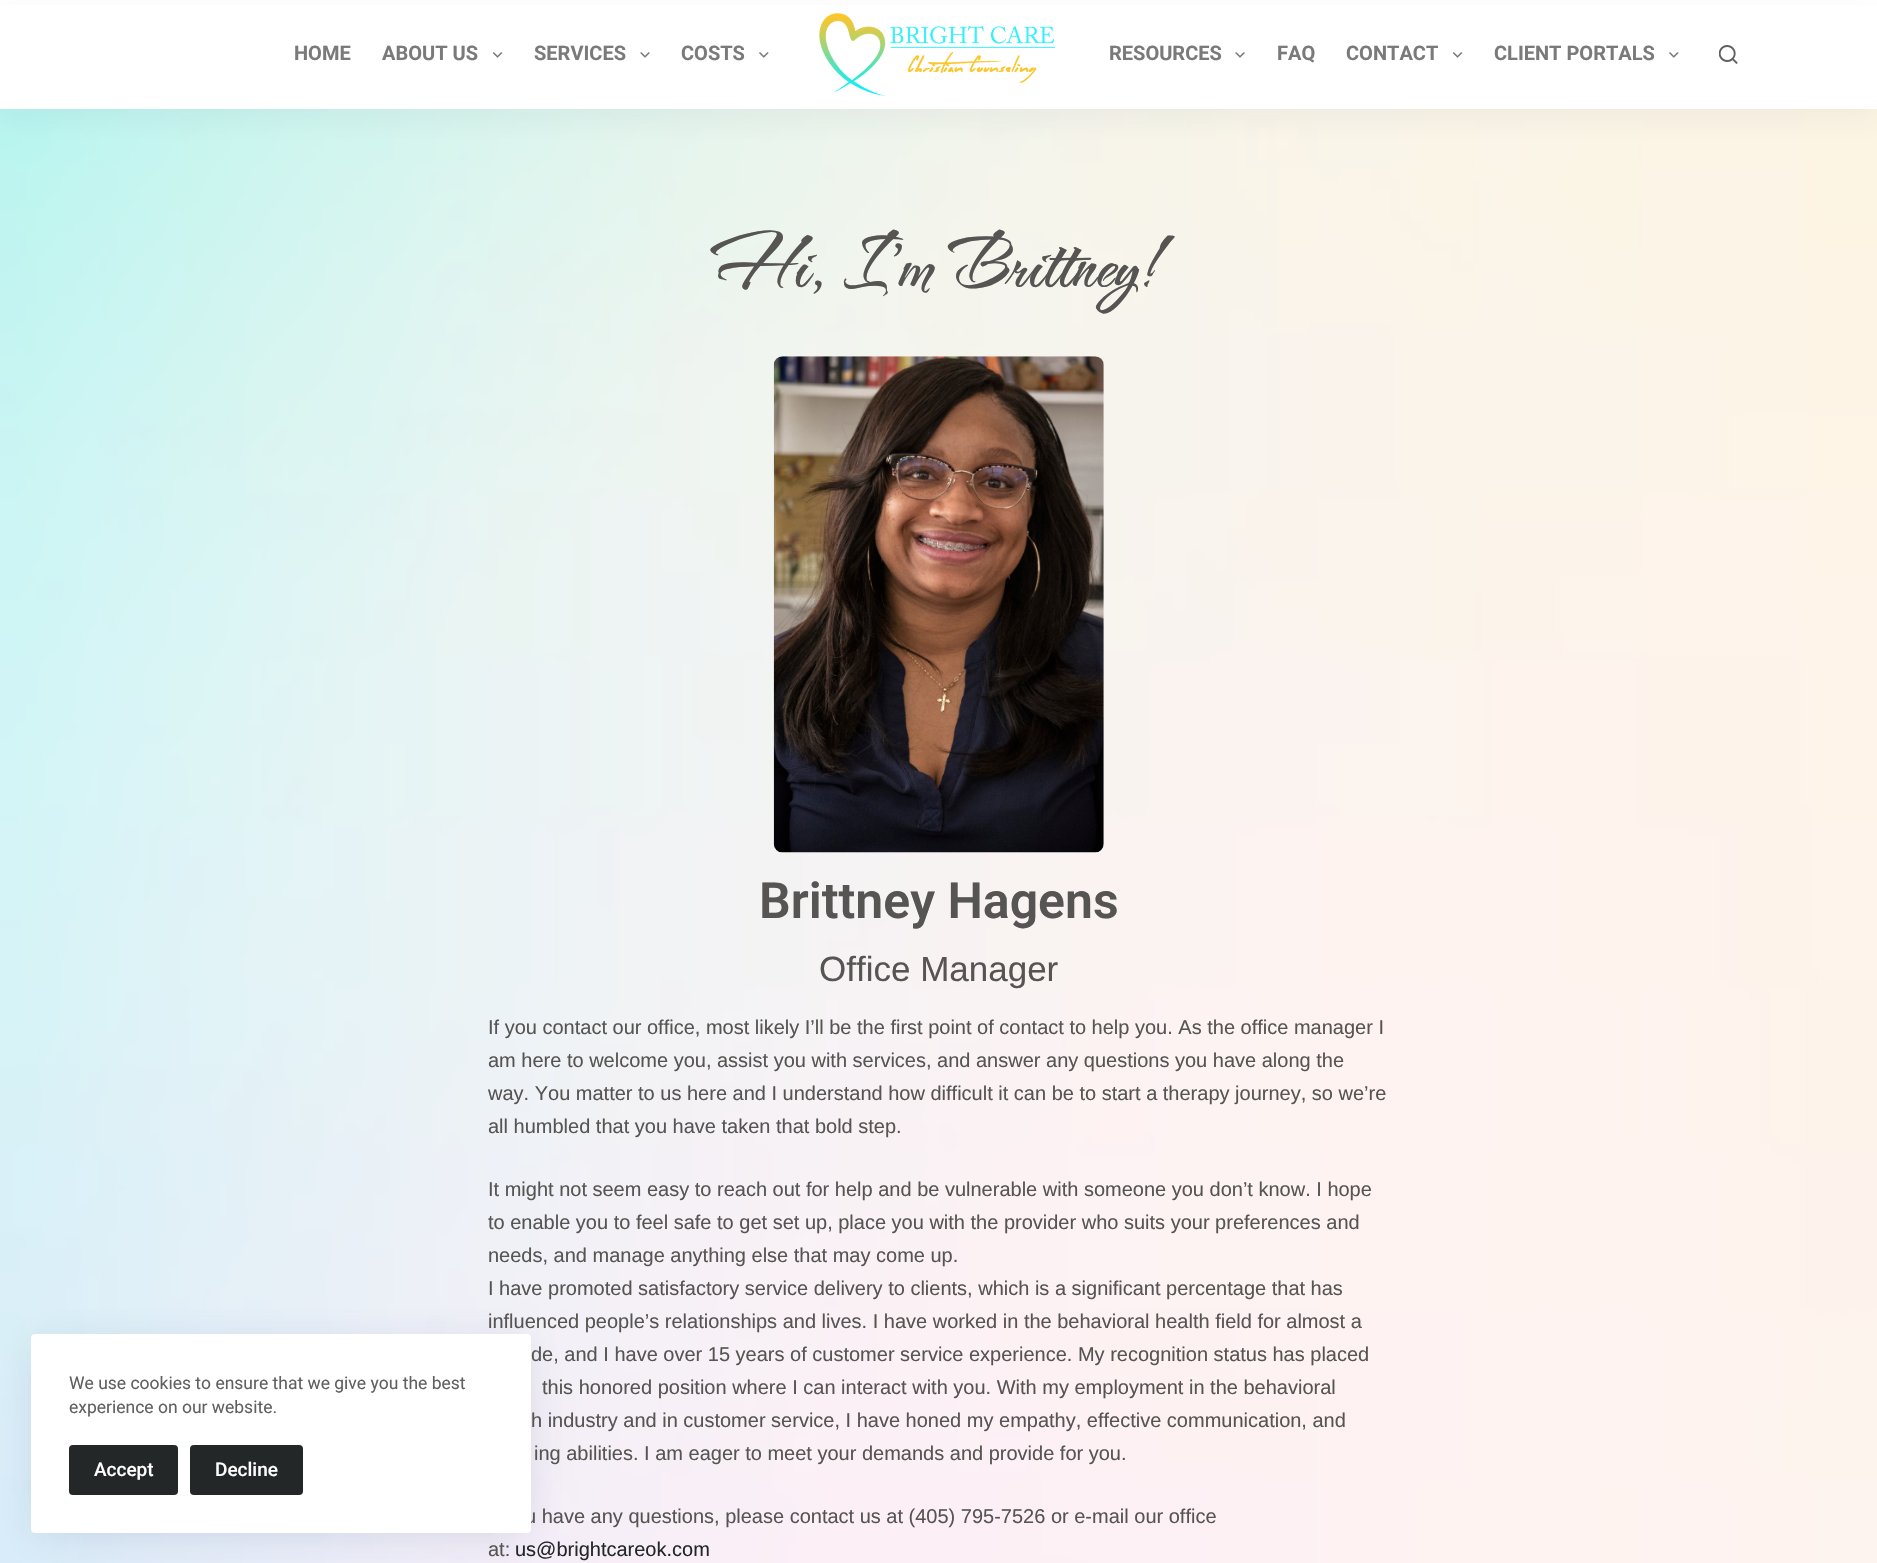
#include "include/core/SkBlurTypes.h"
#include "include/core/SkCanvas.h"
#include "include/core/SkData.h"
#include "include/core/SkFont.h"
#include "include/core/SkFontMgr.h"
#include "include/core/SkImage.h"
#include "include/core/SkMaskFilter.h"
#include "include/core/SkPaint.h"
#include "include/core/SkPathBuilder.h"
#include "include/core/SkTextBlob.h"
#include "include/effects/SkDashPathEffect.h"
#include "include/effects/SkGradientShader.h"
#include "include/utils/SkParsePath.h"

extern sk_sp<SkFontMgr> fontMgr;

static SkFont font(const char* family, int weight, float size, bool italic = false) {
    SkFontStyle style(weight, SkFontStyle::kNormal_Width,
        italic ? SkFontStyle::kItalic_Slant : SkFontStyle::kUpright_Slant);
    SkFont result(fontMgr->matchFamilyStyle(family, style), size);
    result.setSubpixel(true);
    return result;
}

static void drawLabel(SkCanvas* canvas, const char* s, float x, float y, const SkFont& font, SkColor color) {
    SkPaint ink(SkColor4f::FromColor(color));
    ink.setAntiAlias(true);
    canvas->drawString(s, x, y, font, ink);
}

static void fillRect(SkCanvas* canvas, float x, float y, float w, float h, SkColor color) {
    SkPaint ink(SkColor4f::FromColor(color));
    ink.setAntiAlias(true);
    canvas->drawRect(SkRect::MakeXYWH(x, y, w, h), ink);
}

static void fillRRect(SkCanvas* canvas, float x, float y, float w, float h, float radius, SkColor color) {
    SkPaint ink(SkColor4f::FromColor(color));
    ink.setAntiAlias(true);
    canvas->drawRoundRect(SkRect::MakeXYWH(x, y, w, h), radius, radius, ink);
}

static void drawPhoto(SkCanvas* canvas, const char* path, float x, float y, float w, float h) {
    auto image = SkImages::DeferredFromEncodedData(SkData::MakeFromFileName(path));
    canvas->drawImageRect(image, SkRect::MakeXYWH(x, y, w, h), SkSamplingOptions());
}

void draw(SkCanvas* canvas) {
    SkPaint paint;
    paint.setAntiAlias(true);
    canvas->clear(0xFFFFFFFF);
    drawPhoto(canvas, "assets/img6.png", 0, 109, 1877, 1454);
    paint.setColor(0x26223865);
    paint.setMaskFilter(SkMaskFilter::MakeBlur(kNormal_SkBlurStyle, 19));
    canvas->drawRect(SkRect::MakeXYWH(38, 1346, 487, 187), paint);
    paint.setMaskFilter(nullptr);
    SkFont font1 = font("Liberation Sans", 400, 20);
    drawLabel(canvas, "u have any questions, please contact us at (405) 795-7526 or e-mail our office", 525, 1523, font1, 0xFF565553);
    fillRRect(canvas, 31, 1334, 500, 199, 4, 0xFFFFFFFF);
    SkFont font2 = font("Roboto", 400, 17.5f);
    drawLabel(canvas, "We use cookies to ensure that we give you the best", 69, 1389, font2, 0xFF616060);
    drawLabel(canvas, "experience on our website.", 69, 1413, font2, 0xFF616060);
    fillRRect(canvas, 69, 1445, 109, 50, 4, 0xFF242727);
    SkFont font3 = font("Roboto", 500, 19);
    drawLabel(canvas, "Accept", 94, 1476, font3, 0xFFFFFFFF);
    fillRRect(canvas, 190, 1445, 113, 50, 4, 0xFF242727);
    drawLabel(canvas, "Decline", 215, 1476, font3, 0xFFFFFFFF);
    paint.setColor(0x0D2C3E50);
    paint.setMaskFilter(SkMaskFilter::MakeBlur(kNormal_SkBlurStyle, 12.5f));
    canvas->drawRect(SkRect::MakeXYWH(0, 13, 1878, 108), paint);
    paint.setMaskFilter(nullptr);
    fillRect(canvas, 0, 5, 1877, 104, 0xFFFFFFFF);
    SkFont font4 = font("Roboto", 700, 20);
    drawLabel(canvas, "HOME", 294, 60, font4, 0xFF7A7A7A);
    drawLabel(canvas, "ABOUT US", 382, 60, font4, 0xFF7A7A7A);
    drawPhoto(canvas, "assets/img1.png", 493, 52, 10, 6);
    drawLabel(canvas, "SERVICES", 534, 60, font4, 0xFF7A7A7A);
    drawPhoto(canvas, "assets/img2.png", 640, 52, 10, 6);
    drawLabel(canvas, "COSTS", 681, 60, font4, 0xFF7A7A7A);
    drawPhoto(canvas, "assets/img3.png", 759, 52, 10, 6);
    drawPhoto(canvas, "assets/img4.png", 819, 13, 237, 83);
    drawLabel(canvas, "RESOURCES", 1109, 60, font4, 0xFF7A7A7A);
    drawPhoto(canvas, "assets/img2.png", 1235, 52, 10, 6);
    drawLabel(canvas, "FAQ", 1277, 60, font4, 0xFF7A7A7A);
    drawLabel(canvas, "CONTACT", 1346, 60, font4, 0xFF7A7A7A);
    drawPhoto(canvas, "assets/img1.png", 1453, 52, 10, 6);
    drawLabel(canvas, "CLIENT PORTALS", 1494, 60, font4, 0xFF7A7A7A);
    drawPhoto(canvas, "assets/img3.png", 1669, 52, 10, 6);
    drawPhoto(canvas, "assets/img5.png", 1719, 45, 19, 19);
    SkFont font5 = font("The Nautigal", 700, 85);
    drawLabel(canvas, "Hi, I'm Brittney!", 709, 286, font5, 0xFF565553);
    drawPhoto(canvas, "assets/img7.png", 773, 356, 331, 497);
    SkFont font6 = font("Roboto", 600, 50);
    drawLabel(canvas, "Brittney Hagens", 759, 918, font6, 0xFF565553);
    SkFont font7 = font("Liberation Sans", 400, 35);
    drawLabel(canvas, "Office Manager", 819, 981, font7, 0xFF565553);
    drawLabel(canvas, "If you contact our office, most likely I’ll be the first point of contact to help you. As the office manager I", 488, 1034, font1, 0xFF565553);
    drawLabel(canvas, "am here to welcome you, assist you with services, and answer any questions you have along the", 488, 1067, font1, 0xFF565553);
    drawLabel(canvas, "way. You matter to us here and I understand how difficult it can be to start a therapy journey, so we’re", 488, 1100, font1, 0xFF565553);
    drawLabel(canvas, "all humbled that you have taken that bold step.", 488, 1133, font1, 0xFF565553);
    drawLabel(canvas, "It might not seem easy to reach out for help and be vulnerable with someone you don’t know. I hope", 488, 1196, font1, 0xFF565553);
    drawLabel(canvas, "to enable you to feel safe to get set up, place you with the provider who suits your preferences and", 488, 1229, font1, 0xFF565553);
    drawLabel(canvas, "needs, and manage anything else that may come up.", 488, 1262, font1, 0xFF565553);
    drawLabel(canvas, "I have promoted satisfactory service delivery to clients, which is a significant percentage that has", 488, 1295, font1, 0xFF565553);
    drawLabel(canvas, "influenced people’s relationships and lives. I have worked in the behavioral health field for almost a", 488, 1328, font1, 0xFF565553);
    drawLabel(canvas, "de, and I have over 15 years of customer service experience. My recognition status has placed", 531, 1361, font1, 0xFF565553);
    drawLabel(canvas, "this honored position where I can interact with you. With my employment in the behavioral", 542, 1394, font1, 0xFF565553);
    drawLabel(canvas, "h industry and in customer service, I have honed my empathy, effective communication, and", 531, 1427, font1, 0xFF565553);
    drawLabel(canvas, "ing abilities. I am eager to meet your demands and provide for you.", 534, 1460, font1, 0xFF565553);
    drawLabel(canvas, "at:", 488, 1556, font1, 0xFF565553);
    drawLabel(canvas, "us@brightcareok.com", 515, 1556, font1, 0xFF242727);
}
